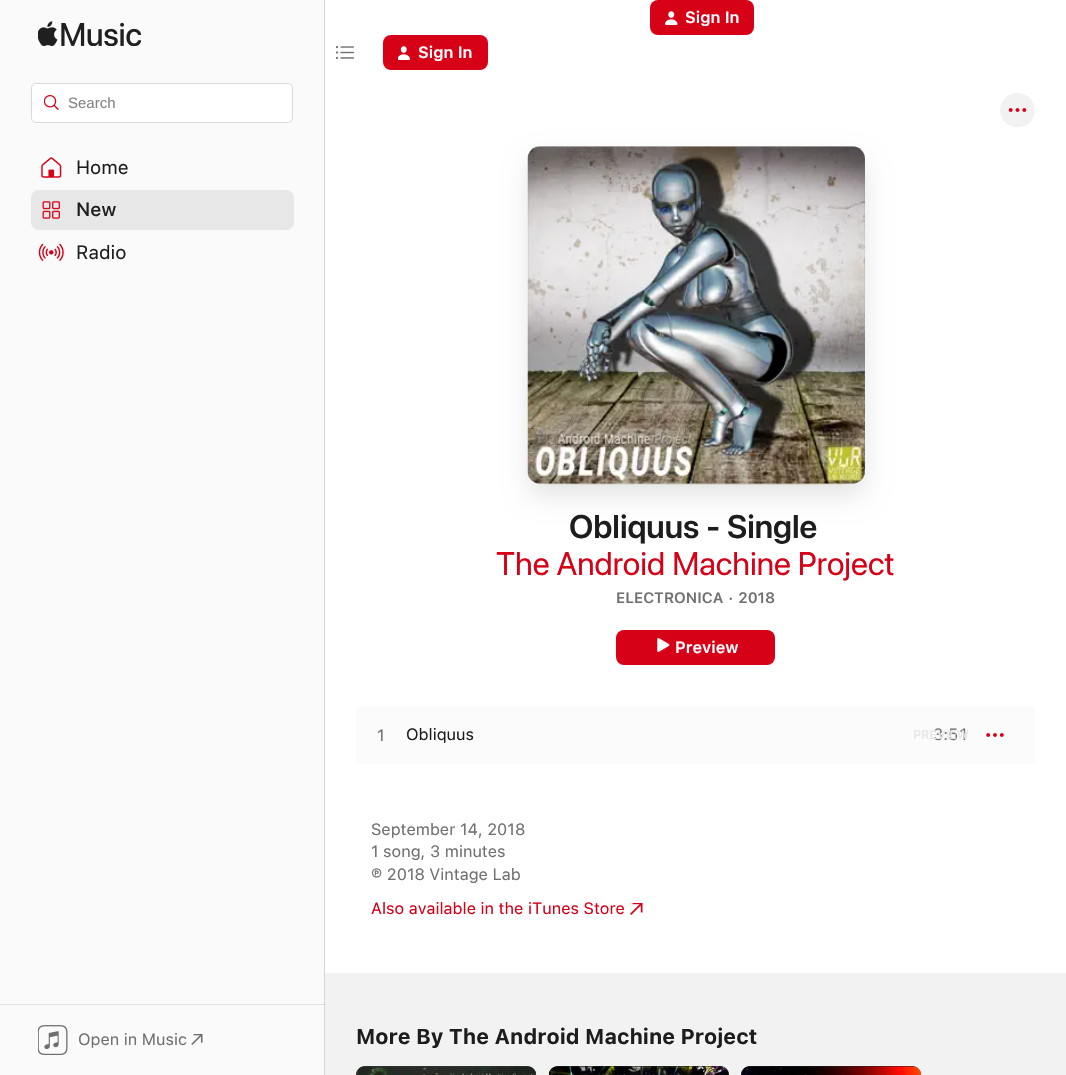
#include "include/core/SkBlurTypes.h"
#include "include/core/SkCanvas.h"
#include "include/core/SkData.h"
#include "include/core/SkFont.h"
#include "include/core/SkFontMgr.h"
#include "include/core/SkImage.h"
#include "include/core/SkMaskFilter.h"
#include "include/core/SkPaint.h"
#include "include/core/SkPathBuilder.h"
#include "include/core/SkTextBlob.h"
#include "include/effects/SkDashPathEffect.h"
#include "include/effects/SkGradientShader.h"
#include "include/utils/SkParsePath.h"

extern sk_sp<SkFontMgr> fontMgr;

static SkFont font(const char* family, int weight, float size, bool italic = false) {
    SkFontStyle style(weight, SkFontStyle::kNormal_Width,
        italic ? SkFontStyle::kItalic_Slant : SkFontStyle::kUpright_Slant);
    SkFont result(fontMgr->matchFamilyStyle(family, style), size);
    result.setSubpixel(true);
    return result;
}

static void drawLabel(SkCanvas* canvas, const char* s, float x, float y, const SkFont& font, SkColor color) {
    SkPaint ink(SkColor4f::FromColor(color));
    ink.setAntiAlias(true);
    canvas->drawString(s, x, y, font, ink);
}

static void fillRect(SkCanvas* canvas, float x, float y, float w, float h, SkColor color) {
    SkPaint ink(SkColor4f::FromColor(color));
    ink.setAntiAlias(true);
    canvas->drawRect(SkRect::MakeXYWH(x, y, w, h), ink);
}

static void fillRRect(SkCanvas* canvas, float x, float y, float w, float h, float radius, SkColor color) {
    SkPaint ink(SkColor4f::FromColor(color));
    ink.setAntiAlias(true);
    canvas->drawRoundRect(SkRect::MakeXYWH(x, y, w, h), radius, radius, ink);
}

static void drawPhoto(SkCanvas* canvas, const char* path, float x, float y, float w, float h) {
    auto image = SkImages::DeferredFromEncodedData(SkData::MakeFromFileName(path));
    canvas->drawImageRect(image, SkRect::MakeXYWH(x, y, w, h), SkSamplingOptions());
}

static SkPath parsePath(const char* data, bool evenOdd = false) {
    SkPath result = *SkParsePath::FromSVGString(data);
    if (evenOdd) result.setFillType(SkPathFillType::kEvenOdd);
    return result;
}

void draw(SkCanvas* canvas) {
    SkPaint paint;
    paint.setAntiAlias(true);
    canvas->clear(0xFFFFFFFF);
    fillRRect(canvas, 650, 0, 104, 35, 8, 0xFFD60017);
    drawPhoto(canvas, "assets/img1.png", 665, 11, 13, 14);
    SkFont font1 = font("SF", 600, 16.25f);
    drawLabel(canvas, "Sign In", 685, 23, font1, 0xFFFFFFFF);
    drawPhoto(canvas, "assets/img2.png", 335, 46, 20, 13);
    fillRRect(canvas, 383, 35, 105, 35, 8, 0xFFD60017);
    drawPhoto(canvas, "assets/img3.png", 398, 46, 12, 14);
    drawLabel(canvas, "Sign In", 418, 58, font1, 0xFFFFFFFF);
    fillRect(canvas, 0, 0, 324, 1075, 0xFFFAFAFA);
    fillRect(canvas, 0, 1004, 325, 1, 0xFFE1E1E1);
    fillRect(canvas, 324, 0, 1, 1075, 0xFFD5D5D5);
    fillRect(canvas, 324, 1004, 1, 1, 0xFFC0C0C0);
    drawPhoto(canvas, "assets/img4.png", 38, 21, 103, 25);
    paint.setColor(0xFFFFFFFF);
    canvas->drawRoundRect(SkRect::MakeXYWH(31.5f, 83.5f, 261, 39), 4.5f, 4.5f, paint);
    paint.setStroke(true);
    paint.setStrokeWidth(1);
    paint.setColor(0xFFD9D9D9);
    canvas->drawRoundRect(SkRect::MakeXYWH(31.5f, 83.5f, 261, 39), 4.5f, 4.5f, paint);
    drawPhoto(canvas, "assets/img5.png", 44, 95, 15, 15);
    SkFont font2 = font("Liberation Sans", 400, 15);
    drawLabel(canvas, "Search", 68, 108, font2, 0xFF858585);
    drawPhoto(canvas, "assets/img6.png", 41, 157, 21, 21);
    SkFont font3 = font("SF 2", 400, 19);
    drawLabel(canvas, "Home", 76, 174, font3, 0xFF1D1D1D);
    fillRRect(canvas, 31, 190, 263, 40, 8, 0xFFE7E7E8);
    drawPhoto(canvas, "assets/img7.png", 42, 201, 18, 18);
    SkFont font4 = font("SF", 500, 19);
    drawLabel(canvas, "New", 76, 216, font4, 0xFF1D1D1D);
    drawPhoto(canvas, "assets/img8.png", 38, 243, 26, 18);
    drawLabel(canvas, "Radio", 76, 259, font3, 0xFF1D1D1D);
    drawPhoto(canvas, "assets/img9.png", 38, 1025, 30, 30);
    SkFont font5 = font("SF 2", 400, 16.25f);
    drawLabel(canvas, "Open in Music", 78, 1045, font5, 0xFF707070);
    drawPhoto(canvas, "assets/img10.png", 191, 1034, 12, 11);
    drawPhoto(canvas, "assets/img11.png", 1000, 93, 35, 35);
    paint.setStroke(false);
    paint.setColor(0x1A000000);
    paint.setMaskFilter(SkMaskFilter::MakeBlur(kNormal_SkBlurStyle, 12.5f));
    canvas->drawRoundRect(SkRect::MakeXYWH(528, 159, 337, 337), 13, 13, paint);
    paint.setMaskFilter(nullptr);
    drawPhoto(canvas, "assets/img13.png", 545, 483, 301, 2);
    paint.setStroke(true);
    paint.setColor(0x0A808080);
    canvas->drawRect(SkRect::MakeXYWH(548.5f, 186.5f, 295, 297), paint);
    drawPhoto(canvas, "assets/img12.png", 527, 146, 338, 338);
    paint.setColor(0x1A808080);
    canvas->drawRoundRect(SkRect::MakeXYWH(528.5f, 146.5f, 336, 337), 12.5f, 12.5f, paint);
    SkFont font6 = font("SF 2", 600, 32.5f);
    drawLabel(canvas, "Obliquus - Single", 569, 538, font6, 0xFF1D1D1D);
    SkFont font7 = font("SF", 400, 32.5f);
    drawLabel(canvas, "The Android Machine Project", 496, 575, font7, 0xFFD60017);
    SkFont font8 = font("SF", 600, 15);
    drawLabel(canvas, "ELECTRONICA · 2018", 616, 603, font8, 0xFF707070);
    fillRRect(canvas, 616, 630, 159, 35, 8, 0xFFD60017);
    drawPhoto(canvas, "assets/img14.png", 657, 638, 13, 14);
    drawLabel(canvas, "Preview", 675, 653, font1, 0xFFFFFFFF);
    fillRect(canvas, 356, 706, 679, 58, 0xFFFBFBFB);
    drawLabel(canvas, "1", 377, 741, font5, 0xFF707070);
    drawLabel(canvas, "Obliquus", 406, 740, font5, 0xFF1D1D1D);
    SkFont font9 = font("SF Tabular", 400, 16.25f);
    drawLabel(canvas, "3:51", 933, 740, font9, 0xFF707070);
    SkFont font10 = font("SF", 500, 12.5f);
    drawLabel(canvas, "PREVIEW", 913, 739, font10, 0xFFE7E7E7);
    drawPhoto(canvas, "assets/img15.png", 986, 733, 18, 4);
    drawLabel(canvas, "September 14, 2018", 371, 835, font5, 0xFF707070);
    drawLabel(canvas, "1 song, 3 minutes", 371, 857, font5, 0xFF707070);
    drawLabel(canvas, "℗ 2018 Vintage Lab", 371, 880, font5, 0xFF707070);
    drawLabel(canvas, "Also available in the iTunes Store", 371, 914, font5, 0xFFD60017);
    drawPhoto(canvas, "assets/img16.png", 630, 903, 13, 12);
    fillRect(canvas, 325, 973, 741, 102, 0xFFF2F2F2);
    SkFont font11 = font("SF", 700, 21.25f);
    drawLabel(canvas, "More By The Android Machine Project", 356, 1044, font11, 0xFF1D1D1D);
    paint.setStroke(false);
    paint.setColor(0xFF232922);
    canvas->drawPath(parsePath("M365 1066H527C532 1066 536 1070 536 1075H356C356 1070 360 1066 365 1066Z"), paint);
    drawPhoto(canvas, "assets/img17.png", 356, 1066, 181, 9);
    paint.setStroke(true);
    paint.setColor(0x1A808080);
    canvas->drawRoundRect(SkRect::MakeXYWH(356.5f, 1066.5f, 179, 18), 8.5f, 8.5f, paint);
    paint.setStroke(false);
    paint.setColor(0xFF0E0E08);
    canvas->drawPath(parsePath("M558 1066H720C725 1066 729 1070 729 1075H549C549 1070 553 1066 558 1066Z"), paint);
    drawPhoto(canvas, "assets/img18.png", 548, 1066, 181, 9);
    paint.setStroke(true);
    paint.setColor(0x1A808080);
    canvas->drawRoundRect(SkRect::MakeXYWH(549.5f, 1066.5f, 179, 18), 8.5f, 8.5f, paint);
    paint.setStroke(false);
    paint.setColor(0xFF070713);
    canvas->drawPath(parsePath("M750 1066H912C917 1066 921 1070 921 1075H741C741 1070 745 1066 750 1066Z"), paint);
    drawPhoto(canvas, "assets/img19.png", 741, 1066, 181, 9);
    paint.setStroke(true);
    paint.setColor(0x1A808080);
    canvas->drawRoundRect(SkRect::MakeXYWH(741.5f, 1066.5f, 179, 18), 8.5f, 8.5f, paint);
}
